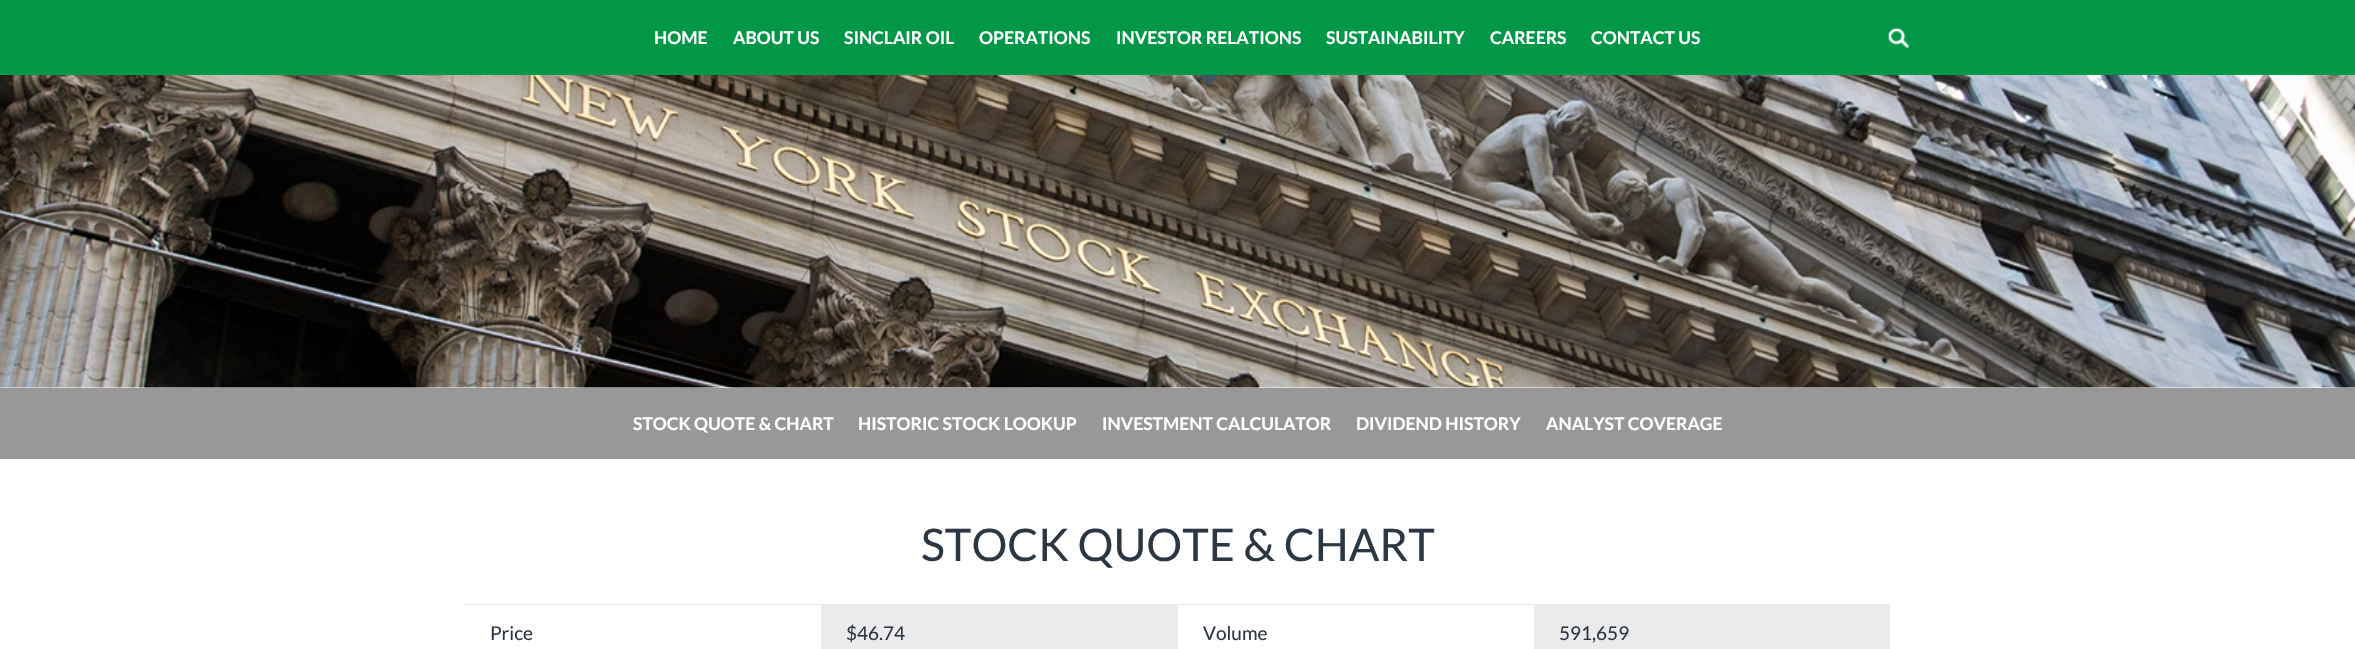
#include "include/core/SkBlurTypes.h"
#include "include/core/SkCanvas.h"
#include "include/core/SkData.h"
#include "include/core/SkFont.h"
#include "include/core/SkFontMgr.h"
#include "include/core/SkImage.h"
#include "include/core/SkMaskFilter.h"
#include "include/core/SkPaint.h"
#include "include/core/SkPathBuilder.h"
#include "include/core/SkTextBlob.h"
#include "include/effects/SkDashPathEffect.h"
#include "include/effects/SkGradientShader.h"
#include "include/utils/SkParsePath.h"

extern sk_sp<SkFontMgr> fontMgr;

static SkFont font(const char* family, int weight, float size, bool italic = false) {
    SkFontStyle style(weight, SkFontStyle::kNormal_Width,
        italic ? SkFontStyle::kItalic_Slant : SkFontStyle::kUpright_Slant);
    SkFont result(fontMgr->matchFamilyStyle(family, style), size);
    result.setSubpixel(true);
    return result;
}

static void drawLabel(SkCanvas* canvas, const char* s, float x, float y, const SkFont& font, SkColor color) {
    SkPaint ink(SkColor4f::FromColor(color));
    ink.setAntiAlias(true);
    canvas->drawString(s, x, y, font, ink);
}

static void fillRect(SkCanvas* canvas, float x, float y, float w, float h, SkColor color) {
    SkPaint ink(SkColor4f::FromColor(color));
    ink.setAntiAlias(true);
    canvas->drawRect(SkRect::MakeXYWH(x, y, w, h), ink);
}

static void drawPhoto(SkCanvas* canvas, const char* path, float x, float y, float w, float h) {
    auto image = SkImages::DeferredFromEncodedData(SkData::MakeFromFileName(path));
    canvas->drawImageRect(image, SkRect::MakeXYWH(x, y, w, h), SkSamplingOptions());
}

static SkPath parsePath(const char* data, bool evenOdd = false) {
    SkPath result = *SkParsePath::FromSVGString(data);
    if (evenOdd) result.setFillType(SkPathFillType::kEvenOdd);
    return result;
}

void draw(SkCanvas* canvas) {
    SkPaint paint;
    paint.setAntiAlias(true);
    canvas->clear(0xFFFFFFFF);
    fillRect(canvas, 0, 0, 2355, 75, 0xFF009747);
    SkFont font1 = font("Lato", 700, 17.5f);
    drawLabel(canvas, "HOME", 654, 44, font1, 0xFFFFFFFF);
    drawLabel(canvas, "ABOUT US", 733, 44, font1, 0xFFFFFFFF);
    drawLabel(canvas, "SINCLAIR OIL", 844, 44, font1, 0xFFFFFFFF);
    drawLabel(canvas, "OPERATIONS", 979, 44, font1, 0xFFFFFFFF);
    drawLabel(canvas, "INVESTOR RELATIONS", 1116, 44, font1, 0xFFFFFFFF);
    drawPhoto(canvas, "assets/img2.png", 0, 75, 2355, 313);
    paint.setColor(0xFF425363);
    canvas->drawPath(parsePath("M1199 75H1219L1209 85Z"), paint);
    drawLabel(canvas, "SUSTAINABILITY", 1326, 44, font1, 0xFFFFFFFF);
    drawLabel(canvas, "CAREERS", 1490, 44, font1, 0xFFFFFFFF);
    drawLabel(canvas, "CONTACT US", 1591, 44, font1, 0xFFFFFFFF);
    drawPhoto(canvas, "assets/img1.png", 1888, 28, 21, 20);
    fillRect(canvas, 0, 388, 2355, 71, 0xFF999899);
    drawLabel(canvas, "STOCK QUOTE & CHART", 633, 430, font1, 0xFFFFFFFF);
    drawLabel(canvas, "HISTORIC STOCK LOOKUP", 858, 430, font1, 0xFFFFFFFF);
    drawLabel(canvas, "INVESTMENT CALCULATOR", 1102, 430, font1, 0xFFFFFFFF);
    drawLabel(canvas, "DIVIDEND HISTORY", 1356, 430, font1, 0xFFFFFFFF);
    drawLabel(canvas, "ANALYST COVERAGE", 1546, 430, font1, 0xFFFFFFFF);
    SkFont font2 = font("Lato", 400, 45);
    drawLabel(canvas, "STOCK QUOTE & CHART", 921, 561, font2, 0xFF2B3743);
    fillRect(canvas, 465, 604, 1425, 1, 0xFFE6E6E6);
    SkFont font3 = font("Lato", 400, 19);
    drawLabel(canvas, "Price", 490, 640, font3, 0xFF2B3743);
    fillRect(canvas, 821, 605, 357, 44, 0xFFEBEBEC);
    drawLabel(canvas, "$46.74", 846, 640, font3, 0xFF2B3743);
    drawLabel(canvas, "Volume", 1203, 640, font3, 0xFF2B3743);
    fillRect(canvas, 1534, 605, 356, 44, 0xFFEBEBEC);
    drawLabel(canvas, "591,659", 1559, 640, font3, 0xFF2B3743);
}
